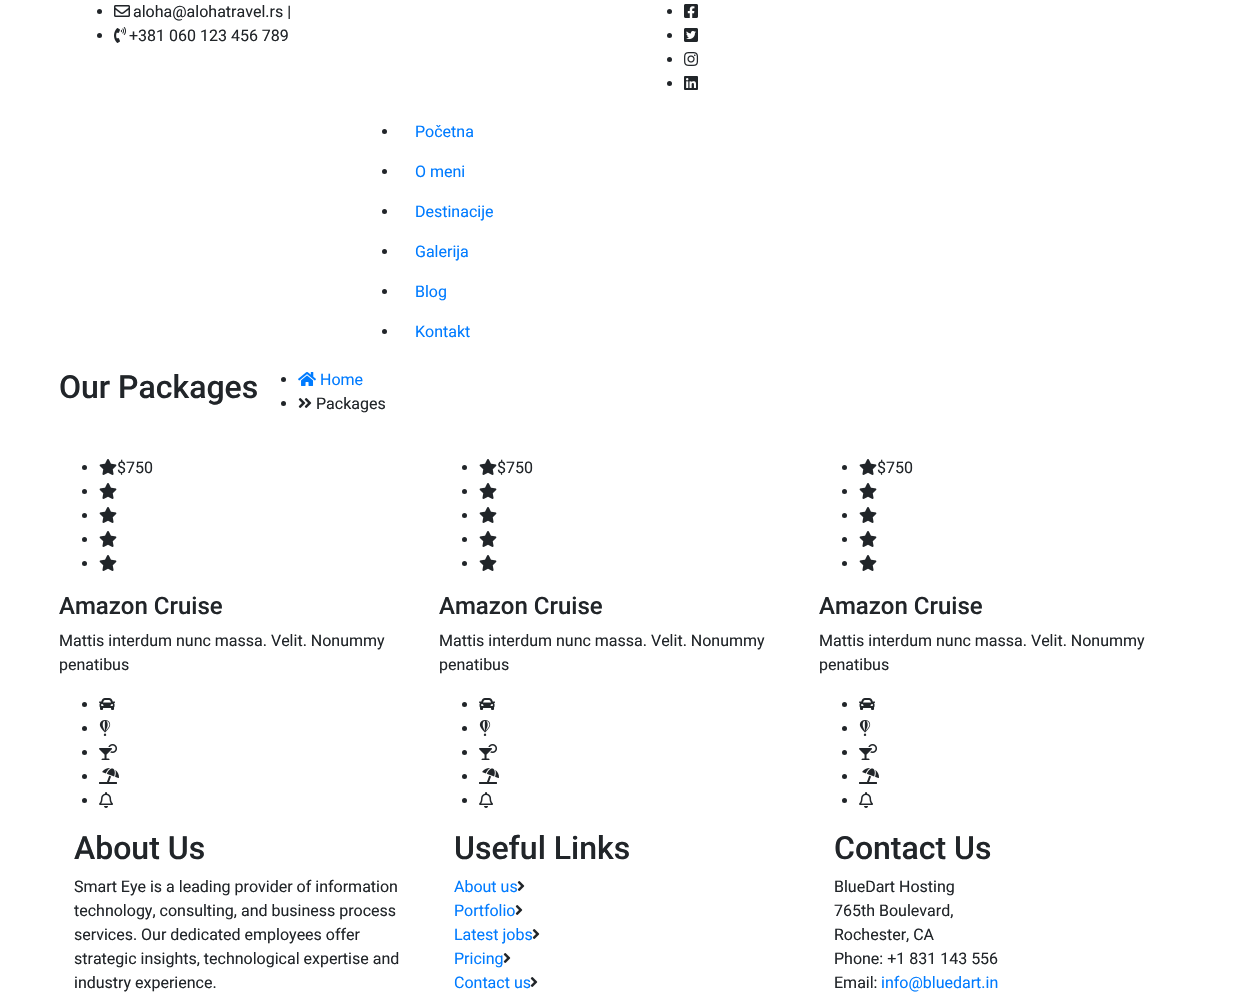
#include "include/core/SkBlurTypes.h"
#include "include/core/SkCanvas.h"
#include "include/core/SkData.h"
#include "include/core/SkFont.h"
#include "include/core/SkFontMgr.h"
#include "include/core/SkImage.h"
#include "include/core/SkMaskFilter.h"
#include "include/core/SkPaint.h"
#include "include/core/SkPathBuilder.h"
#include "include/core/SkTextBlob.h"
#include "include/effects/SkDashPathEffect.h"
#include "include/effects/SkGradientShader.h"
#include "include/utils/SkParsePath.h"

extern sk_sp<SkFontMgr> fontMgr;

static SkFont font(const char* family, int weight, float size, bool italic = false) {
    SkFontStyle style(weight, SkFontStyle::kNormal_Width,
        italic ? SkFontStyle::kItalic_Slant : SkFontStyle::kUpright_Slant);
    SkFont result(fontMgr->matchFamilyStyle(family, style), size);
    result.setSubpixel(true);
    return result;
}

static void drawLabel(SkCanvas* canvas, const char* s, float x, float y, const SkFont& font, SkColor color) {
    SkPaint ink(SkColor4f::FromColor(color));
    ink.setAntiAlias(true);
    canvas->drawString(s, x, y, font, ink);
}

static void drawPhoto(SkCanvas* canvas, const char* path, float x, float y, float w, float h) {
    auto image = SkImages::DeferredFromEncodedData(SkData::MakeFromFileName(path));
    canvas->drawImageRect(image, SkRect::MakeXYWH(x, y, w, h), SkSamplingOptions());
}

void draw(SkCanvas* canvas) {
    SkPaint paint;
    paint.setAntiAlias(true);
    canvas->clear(0xFFFFFFFF);
    paint.setColor(0xFF212529);
    canvas->drawCircle(99.5f, 11.5f, 2.5f, paint);
    drawPhoto(canvas, "assets/img1.png", 114, 5, 16, 12);
    SkFont font1 = font("Roboto", 400, 16);
    drawLabel(canvas, "aloha@alohatravel.rs |", 133, 17, font1, 0xFF212529);
    canvas->drawCircle(99.5f, 35.5f, 2.5f, paint);
    drawPhoto(canvas, "assets/img2.png", 114, 27, 12, 16);
    drawLabel(canvas, "+381 060 123 456 789", 129, 41, font1, 0xFF212529);
    canvas->drawCircle(669.5f, 11.5f, 2.5f, paint);
    drawPhoto(canvas, "assets/img3.png", 684, 4, 14, 14);
    canvas->drawCircle(669.5f, 35.5f, 2.5f, paint);
    drawPhoto(canvas, "assets/img4.png", 684, 28, 14, 14);
    canvas->drawCircle(669.5f, 59.5f, 2.5f, paint);
    drawPhoto(canvas, "assets/img5.png", 684, 52, 15, 14);
    canvas->drawCircle(669.5f, 83.5f, 2.5f, paint);
    drawPhoto(canvas, "assets/img6.png", 684, 76, 14, 14);
    canvas->drawCircle(384.5f, 131.5f, 2.5f, paint);
    drawLabel(canvas, "Početna", 415, 137, font1, 0xFF007BFF);
    canvas->drawCircle(384.5f, 171.5f, 2.5f, paint);
    drawLabel(canvas, "O meni", 415, 177, font1, 0xFF007BFF);
    canvas->drawCircle(384.5f, 211.5f, 2.5f, paint);
    drawLabel(canvas, "Destinacije", 415, 217, font1, 0xFF007BFF);
    canvas->drawCircle(384.5f, 251.5f, 2.5f, paint);
    drawLabel(canvas, "Galerija", 415, 257, font1, 0xFF007BFF);
    canvas->drawCircle(384.5f, 291.5f, 2.5f, paint);
    drawLabel(canvas, "Blog", 415, 297, font1, 0xFF007BFF);
    canvas->drawCircle(384.5f, 331.5f, 2.5f, paint);
    drawLabel(canvas, "Kontakt", 415, 337, font1, 0xFF007BFF);
    SkFont font2 = font("Roboto", 500, 32);
    drawLabel(canvas, "Our Packages", 59, 398, font2, 0xFF212529);
    canvas->drawCircle(283.5f, 379.5f, 2.5f, paint);
    drawPhoto(canvas, "assets/img7.png", 298, 372, 18, 14);
    drawLabel(canvas, "Home", 320, 385, font1, 0xFF007BFF);
    canvas->drawCircle(283.5f, 403.5f, 2.5f, paint);
    drawPhoto(canvas, "assets/img8.png", 298, 398, 14, 10);
    drawLabel(canvas, "Packages", 316, 409, font1, 0xFF212529);
    canvas->drawCircle(84.5f, 467.5f, 2.5f, paint);
    drawPhoto(canvas, "assets/img9.png", 99, 459, 18, 16);
    canvas->drawCircle(84.5f, 491.5f, 2.5f, paint);
    drawPhoto(canvas, "assets/img9.png", 99, 483, 18, 16);
    canvas->drawCircle(84.5f, 515.5f, 2.5f, paint);
    drawPhoto(canvas, "assets/img9.png", 99, 507, 18, 16);
    canvas->drawCircle(84.5f, 539.5f, 2.5f, paint);
    drawPhoto(canvas, "assets/img9.png", 99, 531, 18, 16);
    canvas->drawCircle(84.5f, 563.5f, 2.5f, paint);
    drawPhoto(canvas, "assets/img9.png", 99, 555, 18, 16);
    drawLabel(canvas, "$750", 117, 473, font1, 0xFF212529);
    SkFont font3 = font("Roboto", 500, 24);
    drawLabel(canvas, "Amazon Cruise", 59, 614, font3, 0xFF212529);
    drawLabel(canvas, "Mattis interdum nunc massa. Velit. Nonummy", 59, 646, font1, 0xFF212529);
    drawLabel(canvas, "penatibus", 59, 670, font1, 0xFF212529);
    canvas->drawCircle(84.5f, 704.5f, 2.5f, paint);
    drawPhoto(canvas, "assets/img10.png", 99, 698, 16, 12);
    canvas->drawCircle(84.5f, 728.5f, 2.5f, paint);
    drawPhoto(canvas, "assets/img11.png", 99, 720, 12, 16);
    canvas->drawCircle(84.5f, 752.5f, 2.5f, paint);
    drawPhoto(canvas, "assets/img12.png", 99, 744, 18, 16);
    canvas->drawCircle(84.5f, 776.5f, 2.5f, paint);
    drawPhoto(canvas, "assets/img13.png", 99, 768, 20, 16);
    canvas->drawCircle(84.5f, 800.5f, 2.5f, paint);
    drawPhoto(canvas, "assets/img14.png", 99, 792, 14, 16);
    canvas->drawCircle(464.5f, 467.5f, 2.5f, paint);
    drawPhoto(canvas, "assets/img9.png", 479, 459, 18, 16);
    canvas->drawCircle(464.5f, 491.5f, 2.5f, paint);
    drawPhoto(canvas, "assets/img9.png", 479, 483, 18, 16);
    canvas->drawCircle(464.5f, 515.5f, 2.5f, paint);
    drawPhoto(canvas, "assets/img9.png", 479, 507, 18, 16);
    canvas->drawCircle(464.5f, 539.5f, 2.5f, paint);
    drawPhoto(canvas, "assets/img9.png", 479, 531, 18, 16);
    canvas->drawCircle(464.5f, 563.5f, 2.5f, paint);
    drawPhoto(canvas, "assets/img9.png", 479, 555, 18, 16);
    drawLabel(canvas, "$750", 497, 473, font1, 0xFF212529);
    drawLabel(canvas, "Amazon Cruise", 439, 614, font3, 0xFF212529);
    drawLabel(canvas, "Mattis interdum nunc massa. Velit. Nonummy", 439, 646, font1, 0xFF212529);
    drawLabel(canvas, "penatibus", 439, 670, font1, 0xFF212529);
    canvas->drawCircle(464.5f, 704.5f, 2.5f, paint);
    drawPhoto(canvas, "assets/img10.png", 479, 698, 16, 12);
    canvas->drawCircle(464.5f, 728.5f, 2.5f, paint);
    drawPhoto(canvas, "assets/img11.png", 479, 720, 12, 16);
    canvas->drawCircle(464.5f, 752.5f, 2.5f, paint);
    drawPhoto(canvas, "assets/img12.png", 479, 744, 18, 16);
    canvas->drawCircle(464.5f, 776.5f, 2.5f, paint);
    drawPhoto(canvas, "assets/img13.png", 479, 768, 20, 16);
    canvas->drawCircle(464.5f, 800.5f, 2.5f, paint);
    drawPhoto(canvas, "assets/img14.png", 479, 792, 14, 16);
    canvas->drawCircle(844.5f, 467.5f, 2.5f, paint);
    drawPhoto(canvas, "assets/img9.png", 859, 459, 18, 16);
    canvas->drawCircle(844.5f, 491.5f, 2.5f, paint);
    drawPhoto(canvas, "assets/img9.png", 859, 483, 18, 16);
    canvas->drawCircle(844.5f, 515.5f, 2.5f, paint);
    drawPhoto(canvas, "assets/img9.png", 859, 507, 18, 16);
    canvas->drawCircle(844.5f, 539.5f, 2.5f, paint);
    drawPhoto(canvas, "assets/img9.png", 859, 531, 18, 16);
    canvas->drawCircle(844.5f, 563.5f, 2.5f, paint);
    drawPhoto(canvas, "assets/img9.png", 859, 555, 18, 16);
    drawLabel(canvas, "$750", 877, 473, font1, 0xFF212529);
    drawLabel(canvas, "Amazon Cruise", 819, 614, font3, 0xFF212529);
    drawLabel(canvas, "Mattis interdum nunc massa. Velit. Nonummy", 819, 646, font1, 0xFF212529);
    drawLabel(canvas, "penatibus", 819, 670, font1, 0xFF212529);
    canvas->drawCircle(844.5f, 704.5f, 2.5f, paint);
    drawPhoto(canvas, "assets/img10.png", 859, 698, 16, 12);
    canvas->drawCircle(844.5f, 728.5f, 2.5f, paint);
    drawPhoto(canvas, "assets/img11.png", 859, 720, 12, 16);
    canvas->drawCircle(844.5f, 752.5f, 2.5f, paint);
    drawPhoto(canvas, "assets/img12.png", 859, 744, 18, 16);
    canvas->drawCircle(844.5f, 776.5f, 2.5f, paint);
    drawPhoto(canvas, "assets/img13.png", 859, 768, 20, 16);
    canvas->drawCircle(844.5f, 800.5f, 2.5f, paint);
    drawPhoto(canvas, "assets/img14.png", 859, 792, 14, 16);
    drawLabel(canvas, "About Us", 74, 859, font2, 0xFF212529);
    drawLabel(canvas, "Smart Eye is a leading provider of information", 74, 892, font1, 0xFF212529);
    drawLabel(canvas, "technology, consulting, and business process", 74, 916, font1, 0xFF212529);
    drawLabel(canvas, "services. Our dedicated employees offer", 74, 940, font1, 0xFF212529);
    drawLabel(canvas, "strategic insights, technological expertise and", 74, 964, font1, 0xFF212529);
    drawLabel(canvas, "industry experience.", 74, 988, font1, 0xFF212529);
    drawLabel(canvas, "Useful Links", 454, 859, font2, 0xFF212529);
    drawLabel(canvas, "About us", 454, 892, font1, 0xFF007BFF);
    drawPhoto(canvas, "assets/img15.png", 517, 881, 8, 10);
    drawLabel(canvas, "Portfolio", 454, 916, font1, 0xFF007BFF);
    drawPhoto(canvas, "assets/img15.png", 515, 905, 8, 10);
    drawLabel(canvas, "Latest jobs", 454, 940, font1, 0xFF007BFF);
    drawPhoto(canvas, "assets/img15.png", 532, 929, 8, 10);
    drawLabel(canvas, "Pricing", 454, 964, font1, 0xFF007BFF);
    drawPhoto(canvas, "assets/img15.png", 503, 953, 8, 10);
    drawLabel(canvas, "Contact us", 454, 988, font1, 0xFF007BFF);
    drawPhoto(canvas, "assets/img15.png", 530, 977, 8, 10);
    drawLabel(canvas, "Contact Us", 834, 859, font2, 0xFF212529);
    drawLabel(canvas, "BlueDart Hosting", 834, 892, font1, 0xFF212529);
    drawLabel(canvas, "765th Boulevard,", 834, 916, font1, 0xFF212529);
    drawLabel(canvas, "Rochester, CA", 834, 940, font1, 0xFF212529);
    drawLabel(canvas, "Phone: +1 831 143 556", 834, 964, font1, 0xFF212529);
    drawLabel(canvas, "Email:", 834, 988, font1, 0xFF212529);
    drawLabel(canvas, "info@bluedart.in", 881, 988, font1, 0xFF007BFF);
}
